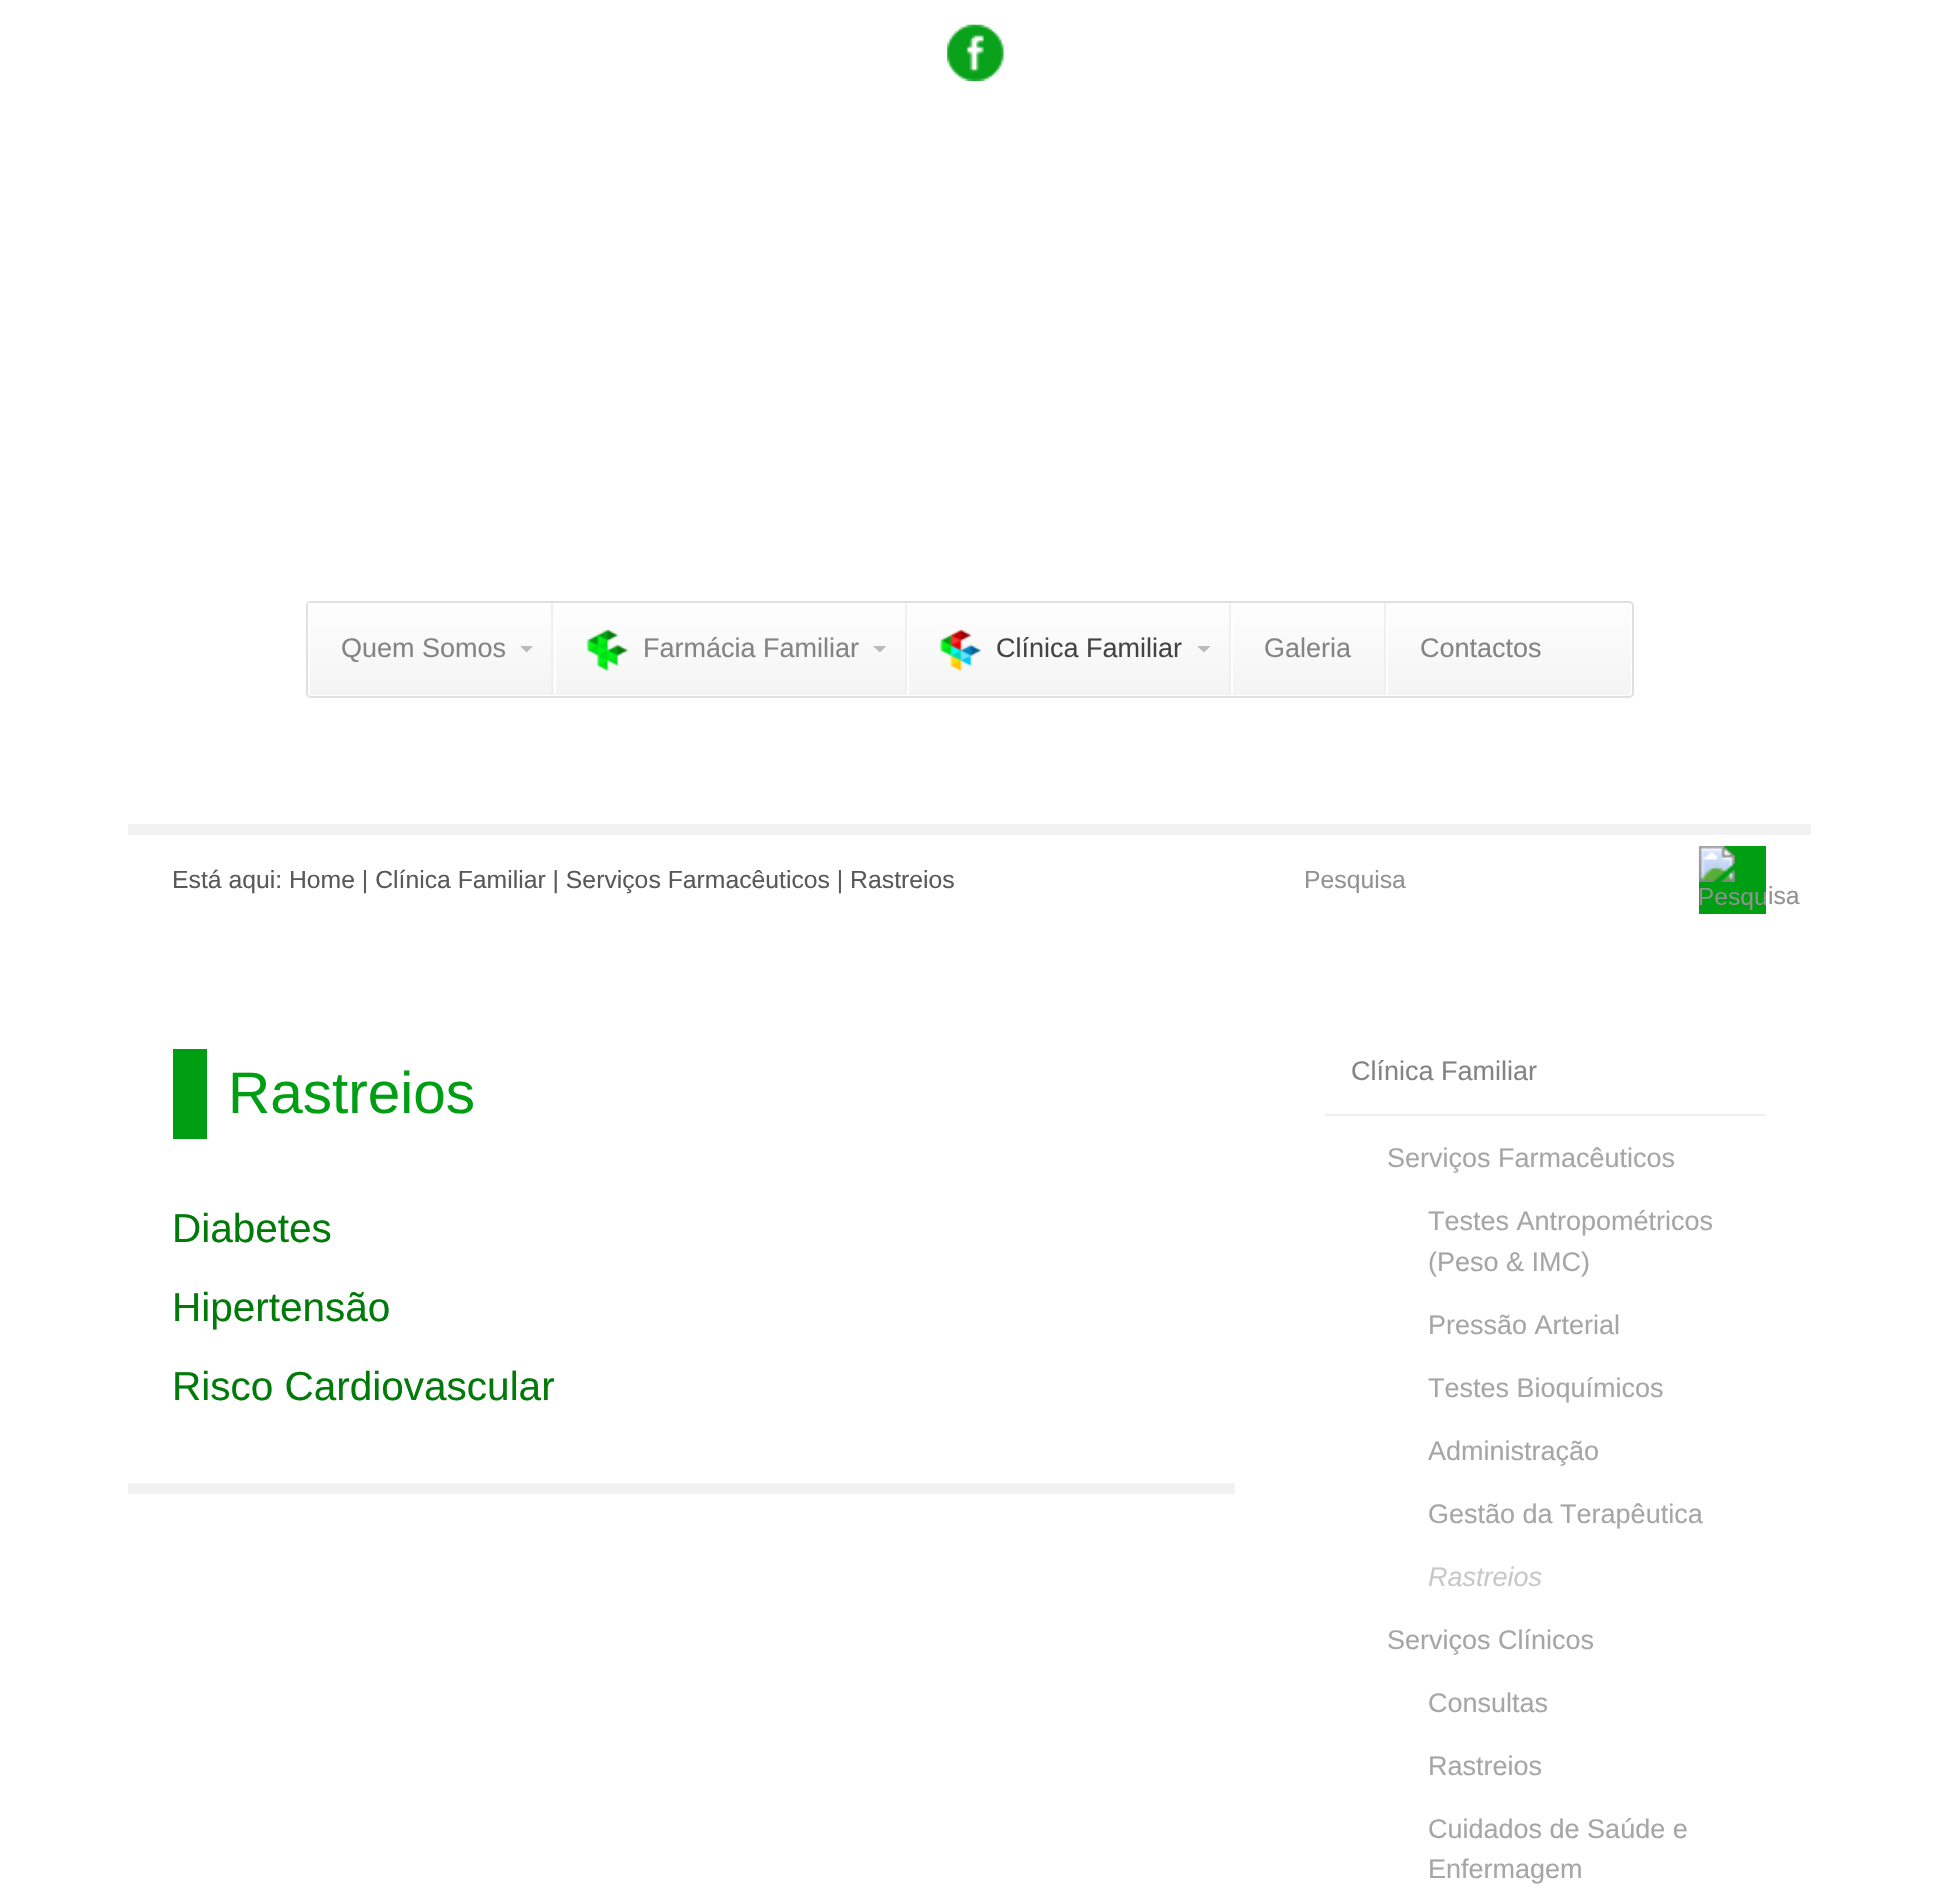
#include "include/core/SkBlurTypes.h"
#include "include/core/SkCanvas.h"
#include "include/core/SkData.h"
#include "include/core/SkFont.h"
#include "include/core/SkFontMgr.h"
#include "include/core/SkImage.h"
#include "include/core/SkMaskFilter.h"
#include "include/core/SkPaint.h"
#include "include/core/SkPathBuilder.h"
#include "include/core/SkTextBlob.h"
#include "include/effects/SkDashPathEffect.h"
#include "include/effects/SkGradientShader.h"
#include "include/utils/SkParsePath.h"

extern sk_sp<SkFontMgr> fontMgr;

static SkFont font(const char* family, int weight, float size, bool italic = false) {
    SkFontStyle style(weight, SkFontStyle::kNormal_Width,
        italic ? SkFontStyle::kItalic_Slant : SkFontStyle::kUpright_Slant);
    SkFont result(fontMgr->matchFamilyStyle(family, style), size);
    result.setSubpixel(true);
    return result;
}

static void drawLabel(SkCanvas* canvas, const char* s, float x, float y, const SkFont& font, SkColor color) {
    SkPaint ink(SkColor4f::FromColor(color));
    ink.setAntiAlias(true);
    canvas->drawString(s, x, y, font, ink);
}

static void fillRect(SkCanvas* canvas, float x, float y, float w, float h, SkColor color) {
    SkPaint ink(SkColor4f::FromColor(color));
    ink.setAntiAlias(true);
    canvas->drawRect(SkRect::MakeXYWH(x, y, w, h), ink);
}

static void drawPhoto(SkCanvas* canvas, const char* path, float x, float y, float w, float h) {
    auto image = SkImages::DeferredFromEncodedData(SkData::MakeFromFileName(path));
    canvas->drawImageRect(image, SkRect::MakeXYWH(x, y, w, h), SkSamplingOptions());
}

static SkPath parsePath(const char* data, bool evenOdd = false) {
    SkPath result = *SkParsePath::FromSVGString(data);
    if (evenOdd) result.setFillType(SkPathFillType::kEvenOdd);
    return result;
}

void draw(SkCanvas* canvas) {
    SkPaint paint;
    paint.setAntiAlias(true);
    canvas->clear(0xFFFFFFFF);
    drawPhoto(canvas, "assets/img1.png", 947, 24, 57, 57);
    {
        const SkColor colors[] = {0xFFFEFEFE, 0xFFF4F4F4};
        const float stops[] = {0, 1};
        const SkPoint ends[] = {{970, 603}, {970, 695}};
        paint.setShader(SkGradientShader::MakeLinear(ends, colors, stops, 2, SkTileMode::kClamp));
        paint.setAlpha(255);
    }
    canvas->drawRoundRect(SkRect::MakeXYWH(308, 603, 1323, 92), 2, 2, paint);
    {
        const SkColor colors[] = {0xFFFFFFFF, 0xFFFEFEFE};
        const float stops[] = {0, 1};
        const SkPoint ends[] = {{970, 603}, {970, 695}};
        paint.setShader(SkGradientShader::MakeLinear(ends, colors, stops, 2, SkTileMode::kClamp));
        paint.setAlpha(255);
    }
    canvas->drawRect(SkRect::MakeXYWH(907, 617, 2, 78), paint);
    canvas->drawRect(SkRect::MakeXYWH(1386, 617, 2, 78), paint);
    canvas->drawRect(SkRect::MakeXYWH(1231, 617, 2, 78), paint);
    canvas->drawRect(SkRect::MakeXYWH(554, 617, 2, 78), paint);
    paint.setStroke(true);
    paint.setStrokeWidth(2);
    paint.setShader(nullptr);
    paint.setColor(0xFFE0E0E0);
    canvas->drawRoundRect(SkRect::MakeXYWH(307, 602, 1326, 95), 4, 4, paint);
    fillRect(canvas, 308, 603, 2, 92, 0xE6FFFFFF);
    SkFont font1 = font("Liberation Sans", 400, 27);
    drawLabel(canvas, "Quem Somos", 341, 657, font1, 0xFF848484);
    paint.setStroke(false);
    paint.setColor(0xFFBBBBBB);
    canvas->drawPath(parsePath("M520 646H533L526.5 652.5Z"), paint);
    fillRect(canvas, 551, 603, 2, 92, 0xFFF0F0F0);
    drawPhoto(canvas, "assets/img2.png", 587, 630, 41, 41);
    drawLabel(canvas, "Farmácia Familiar", 643, 657, font1, 0xFF848484);
    canvas->drawPath(parsePath("M873 646H886.5L880 652.5Z"), paint);
    fillRect(canvas, 905, 603, 2, 92, 0xFFF0F0F0);
    drawPhoto(canvas, "assets/img3.png", 940, 630, 41, 41);
    drawLabel(canvas, "Clínica Familiar", 996, 657, font1, 0xFF444444);
    canvas->drawPath(parsePath("M1197 646H1210.5L1204 652.5Z"), paint);
    fillRect(canvas, 1229, 603, 2, 92, 0xFFF0F0F0);
    drawLabel(canvas, "Galeria", 1264, 657, font1, 0xFF848484);
    fillRect(canvas, 1384, 603, 2, 92, 0xFFF0F0F0);
    drawLabel(canvas, "Contactos", 1420, 657, font1, 0xFF848484);
    fillRect(canvas, 128, 824, 1683, 11, 0xFFF2F2F2);
    SkFont font2 = font("Liberation Sans", 400, 24.75f);
    drawLabel(canvas, "Está aqui: Home | Clínica Familiar | Serviços Farmacêuticos | Rastreios", 172, 888, font2, 0xFF595959);
    canvas->save();
    canvas->clipRect(SkRect::MakeXYWH(1305, 866, 394, 27));
    drawLabel(canvas, "Pesquisa", 1304, 888, font2, 0xFF929292);
    canvas->restore();
    fillRect(canvas, 1699, 846, 67, 68, 0xFF009E12);
    drawPhoto(canvas, "assets/img4.png", 1698, 846, 68, 64);
    drawLabel(canvas, "isa", 1768, 904, font2, 0xFF929292);
    paint.setColor(0xFFF2F2F2);
    canvas->drawPath(parsePath("M128 1015V1494H1235V1483H128Z"), paint);
    fillRect(canvas, 173, 1049, 34, 90, 0xFF009E12);
    SkFont font3 = font("Liberation Sans", 400, 58.5f);
    drawLabel(canvas, "Rastreios", 228, 1113, font3, 0xFF009E12);
    SkFont font4 = font("Liberation Sans", 400, 40.5f);
    drawLabel(canvas, "Diabetes", 172, 1242, font4, 0xFF017A09);
    drawLabel(canvas, "Hipertensão", 172, 1321, font4, 0xFF017A09);
    drawLabel(canvas, "Risco Cardiovascular", 172, 1400, font4, 0xFF017A09);
    drawLabel(canvas, "Clínica Familiar", 1351, 1080, font1, 0xFF848484);
    fillRect(canvas, 1325, 1114, 441, 2, 0xFFF0F0F0);
    drawLabel(canvas, "Serviços Farmacêuticos", 1387, 1167, font1, 0xFFA6A6A6);
    drawLabel(canvas, "Testes Antropométricos", 1428, 1230, font1, 0xFFA6A6A6);
    drawLabel(canvas, "(Peso & IMC)", 1428, 1271, font1, 0xFFA6A6A6);
    drawLabel(canvas, "Pressão Arterial", 1428, 1334, font1, 0xFFA6A6A6);
    drawLabel(canvas, "Testes Bioquímicos", 1428, 1397, font1, 0xFFA6A6A6);
    drawLabel(canvas, "Administração", 1428, 1460, font1, 0xFFA6A6A6);
    drawLabel(canvas, "Gestão da Terapêutica", 1428, 1523, font1, 0xFFA6A6A6);
    SkFont font5 = font("Liberation Sans", 400, 27, true);
    drawLabel(canvas, "Rastreios", 1428, 1586, font5, 0xFFC9C9C9);
    drawLabel(canvas, "Serviços Clínicos", 1387, 1649, font1, 0xFFA6A6A6);
    drawLabel(canvas, "Consultas", 1428, 1712, font1, 0xFFA6A6A6);
    drawLabel(canvas, "Rastreios", 1428, 1775, font1, 0xFFA6A6A6);
    drawLabel(canvas, "Cuidados de Saúde e", 1428, 1838, font1, 0xFFA6A6A6);
    drawLabel(canvas, "Enfermagem", 1428, 1878, font1, 0xFFA6A6A6);
}
